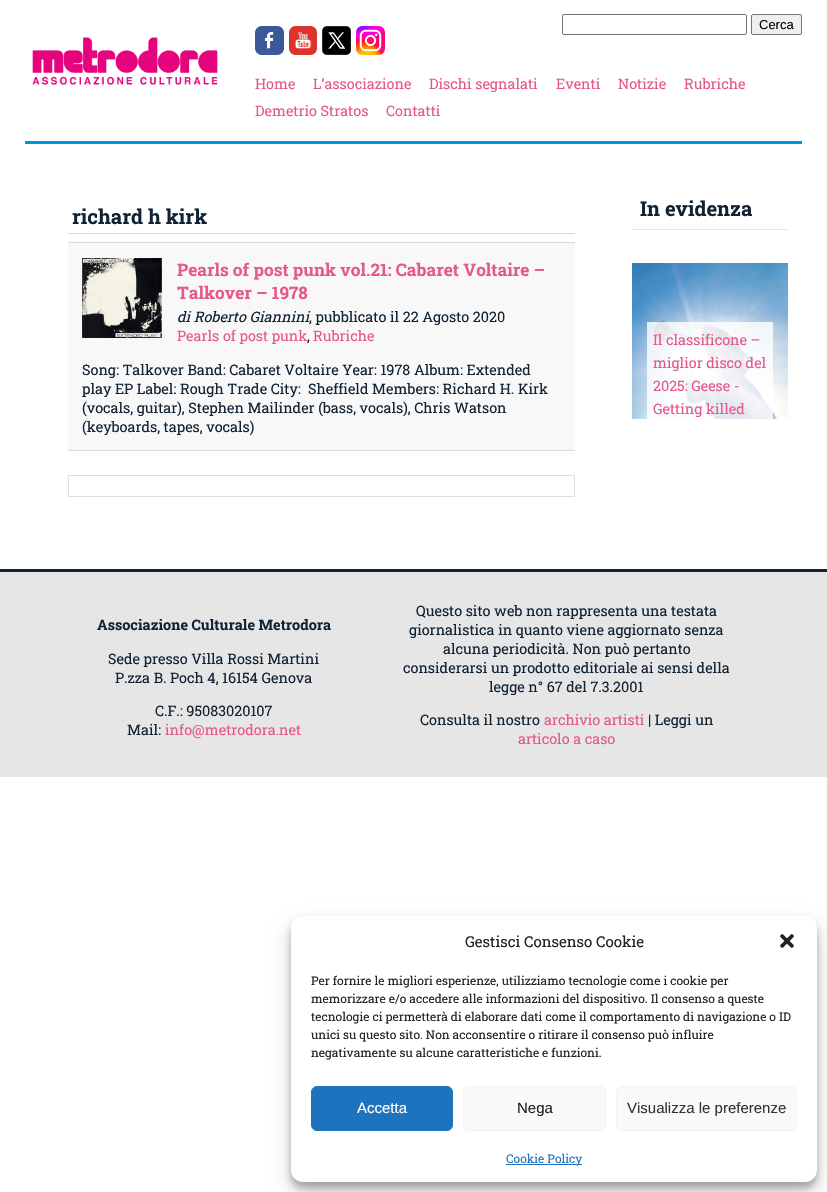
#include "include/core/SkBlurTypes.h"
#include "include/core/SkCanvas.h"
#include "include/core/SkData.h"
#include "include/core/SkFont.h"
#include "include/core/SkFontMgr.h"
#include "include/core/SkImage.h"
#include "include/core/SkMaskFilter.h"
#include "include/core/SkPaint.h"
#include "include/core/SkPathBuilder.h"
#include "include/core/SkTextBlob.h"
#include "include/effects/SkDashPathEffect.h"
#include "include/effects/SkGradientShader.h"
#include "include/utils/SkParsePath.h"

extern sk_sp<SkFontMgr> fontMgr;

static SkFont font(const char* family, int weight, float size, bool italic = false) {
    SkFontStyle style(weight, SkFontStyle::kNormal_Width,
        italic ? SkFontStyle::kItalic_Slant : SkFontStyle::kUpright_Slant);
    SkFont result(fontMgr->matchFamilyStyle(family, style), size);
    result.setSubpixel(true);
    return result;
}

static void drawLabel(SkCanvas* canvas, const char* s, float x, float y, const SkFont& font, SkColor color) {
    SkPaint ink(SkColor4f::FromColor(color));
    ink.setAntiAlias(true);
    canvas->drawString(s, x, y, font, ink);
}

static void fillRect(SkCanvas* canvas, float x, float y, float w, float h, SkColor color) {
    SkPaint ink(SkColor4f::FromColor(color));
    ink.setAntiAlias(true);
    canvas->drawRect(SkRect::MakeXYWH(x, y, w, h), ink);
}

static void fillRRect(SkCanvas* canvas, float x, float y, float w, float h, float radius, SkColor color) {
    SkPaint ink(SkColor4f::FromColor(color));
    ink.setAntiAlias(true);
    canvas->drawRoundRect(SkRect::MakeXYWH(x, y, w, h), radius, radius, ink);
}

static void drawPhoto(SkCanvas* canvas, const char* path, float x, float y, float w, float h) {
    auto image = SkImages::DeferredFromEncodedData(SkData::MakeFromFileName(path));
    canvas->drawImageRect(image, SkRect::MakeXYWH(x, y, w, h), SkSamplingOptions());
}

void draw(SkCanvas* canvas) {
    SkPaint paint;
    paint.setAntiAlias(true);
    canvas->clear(0xFFFFFFFF);
    fillRect(canvas, 25, 141, 777, 3, 0xFF0095E1);
    paint.setStroke(true);
    paint.setStrokeWidth(1);
    paint.setColor(0xFF767676);
    canvas->drawRoundRect(SkRect::MakeXYWH(562.5f, 14.5f, 184, 20), 1.5f, 1.5f, paint);
    paint.setStroke(false);
    paint.setColor(0xFFEFEFEF);
    canvas->drawRoundRect(SkRect::MakeXYWH(751.5f, 14.5f, 50, 20), 1.5f, 1.5f, paint);
    paint.setStroke(true);
    paint.setColor(0xFF767676);
    canvas->drawRoundRect(SkRect::MakeXYWH(751.5f, 14.5f, 50, 20), 1.5f, 1.5f, paint);
    SkFont font1 = font("Liberation Sans", 400, 13);
    drawLabel(canvas, "Cerca", 759, 29, font1, 0xFF000000);
    drawPhoto(canvas, "assets/img1.png", 32, 37, 186, 48);
    drawPhoto(canvas, "assets/img2.png", 255, 26, 29, 29);
    drawPhoto(canvas, "assets/img3.png", 289, 26, 28, 29);
    drawPhoto(canvas, "assets/img4.png", 322, 26, 29, 29);
    drawPhoto(canvas, "assets/img5.png", 356, 26, 29, 29);
    SkFont font2 = font("Roboto Slab", 400, 14.4f);
    drawLabel(canvas, "Home", 255, 89, font2, 0xFFE6578C);
    drawLabel(canvas, "L’associazione", 313, 89, font2, 0xFFE6578C);
    drawLabel(canvas, "Dischi segnalati", 429, 89, font2, 0xFFE6578C);
    drawLabel(canvas, "Eventi", 556, 89, font2, 0xFFE6578C);
    drawLabel(canvas, "Notizie", 618, 89, font2, 0xFFE6578C);
    drawLabel(canvas, "Rubriche", 684, 89, font2, 0xFFE6578C);
    drawLabel(canvas, "Demetrio Stratos", 255, 116, font2, 0xFFE6578C);
    drawLabel(canvas, "Contatti", 386, 116, font2, 0xFFE6578C);
    fillRect(canvas, 68, 233, 507, 1, 0xFFD8D8D8);
    SkFont font3 = font("Roboto Slab", 700, 20.25f);
    drawLabel(canvas, "richard h kirk", 72, 224, font3, 0xFF112233);
    fillRect(canvas, 68, 243, 507, 207, 0xFFF8F8F8);
    fillRect(canvas, 68, 242, 507, 1, 0xFFD8D8D8);
    fillRect(canvas, 68, 450, 507, 1, 0xFFD8D8D8);
    drawPhoto(canvas, "assets/img6.png", 82, 258, 80, 80);
    SkFont font4 = font("Roboto Slab", 700, 17.25f);
    drawLabel(canvas, "Pearls of post punk vol.21: Cabaret Voltaire –", 177, 276, font4, 0xFFE6578C);
    drawLabel(canvas, "Talkover – 1978", 177, 299, font4, 0xFFE6578C);
    SkFont font5 = font("Roboto Slab", 400, 14.4f, true);
    drawLabel(canvas, "di Roberto Giannini", 177, 322, font5, 0xFF112233);
    drawLabel(canvas, ", pubblicato il 22 Agosto 2020", 309, 322, font2, 0xFF112233);
    drawLabel(canvas, "Pearls of post punk", 177, 341, font2, 0xFFE6578C);
    drawLabel(canvas, ",", 307, 341, font2, 0xFF112233);
    drawLabel(canvas, "Rubriche", 313, 341, font2, 0xFFE6578C);
    drawLabel(canvas, "Song: Talkover Band: Cabaret Voltaire Year: 1978 Album: Extended", 82, 375, font2, 0xFF112233);
    drawLabel(canvas, "play EP Label: Rough Trade City:  Sheffield Members: Richard H. Kirk", 82, 394, font2, 0xFF112233);
    drawLabel(canvas, "(vocals, guitar), Stephen Mailinder (bass, vocals), Chris Watson", 82, 413, font2, 0xFF112233);
    drawLabel(canvas, "(keyboards, tapes, vocals)", 82, 432, font2, 0xFF112233);
    paint.setColor(0xFFDDDDDD);
    canvas->drawRect(SkRect::MakeXYWH(68.5f, 475.5f, 506, 21), paint);
    fillRect(canvas, 632, 229, 156, 1, 0xFFE6E6E6);
    drawLabel(canvas, "In evidenza", 640, 216, font3, 0xFF112233);
    drawPhoto(canvas, "assets/img7.png", 632, 263, 156, 156);
    fillRect(canvas, 647, 322, 126, 97, 0xCCFFFFFF);
    drawLabel(canvas, "Il classificone –", 653, 345, font2, 0xFFE6578C);
    drawLabel(canvas, "miglior disco del", 653, 368, font2, 0xFFE6578C);
    drawLabel(canvas, "2025: Geese -", 653, 391, font2, 0xFFE6578C);
    drawLabel(canvas, "Getting killed", 653, 414, font2, 0xFFE6578C);
    fillRect(canvas, 0, 572, 827, 205, 0xFFE6E6E6);
    fillRect(canvas, 0, 569, 827, 3, 0xFF112233);
    SkFont font6 = font("Roboto Slab", 700, 14.4f);
    drawLabel(canvas, "Associazione Culturale Metrodora", 97, 630, font6, 0xFF112233);
    drawLabel(canvas, "Sede presso Villa Rossi Martini", 108, 664, font2, 0xFF112233);
    drawLabel(canvas, "P.zza B. Poch 4, 16154 Genova", 115, 683, font2, 0xFF112233);
    drawLabel(canvas, "C.F.: 95083020107", 155, 716, font2, 0xFF112233);
    drawLabel(canvas, "Mail:", 127, 735, font2, 0xFF112233);
    drawLabel(canvas, "info@metrodora.net", 165, 735, font2, 0xFFE6578C);
    drawLabel(canvas, "Questo sito web non rappresenta una testata", 416, 616, font2, 0xFF112233);
    drawLabel(canvas, "giornalistica in quanto viene aggiornato senza", 409, 635, font2, 0xFF112233);
    drawLabel(canvas, "alcuna periodicità. Non può pertanto", 443, 654, font2, 0xFF112233);
    drawLabel(canvas, "considerarsi un prodotto editoriale ai sensi della", 403, 673, font2, 0xFF112233);
    drawLabel(canvas, "legge n° 67 del 7.3.2001", 489, 692, font2, 0xFF112233);
    drawLabel(canvas, "Consulta il nostro", 420, 725, font2, 0xFF112233);
    drawLabel(canvas, "archivio artisti", 544, 725, font2, 0xFFE6578C);
    drawLabel(canvas, "| Leggi un", 648, 725, font2, 0xFF112233);
    drawLabel(canvas, "articolo a caso", 518, 744, font2, 0xFFE6578C);
    paint.setStroke(false);
    paint.setColor(0x3B000000);
    paint.setMaskFilter(SkMaskFilter::MakeBlur(kNormal_SkBlurStyle, 3));
    canvas->drawRoundRect(SkRect::MakeXYWH(291, 922, 526, 266), 12, 12, paint);
    paint.setMaskFilter(nullptr);
    paint.setColor(0x30000000);
    paint.setMaskFilter(SkMaskFilter::MakeBlur(kNormal_SkBlurStyle, 10));
    canvas->drawRoundRect(SkRect::MakeXYWH(291, 926, 526, 266), 12, 12, paint);
    paint.setMaskFilter(nullptr);
    fillRRect(canvas, 291, 916, 526, 266, 12, 0xFFFFFFFF);
    SkFont font7 = font("Roboto Slab", 400, 15);
    drawLabel(canvas, "Gestisci Consenso Cookie", 465, 947, font7, 0xFF222222);
    drawPhoto(canvas, "assets/img8.png", 780, 934, 14, 14);
    SkFont font8 = font("Roboto Slab", 400, 12);
    drawLabel(canvas, "Per fornire le migliori esperienze, utilizziamo tecnologie come i cookie per", 311, 985, font8, 0xFF222222);
    drawLabel(canvas, "memorizzare e/o accedere alle informazioni del dispositivo. Il consenso a queste", 311, 1003, font8, 0xFF222222);
    drawLabel(canvas, "tecnologie ci permetterà di elaborare dati come il comportamento di navigazione o ID", 311, 1021, font8, 0xFF222222);
    drawLabel(canvas, "unici su questo sito. Non acconsentire o ritirare il consenso può influire", 311, 1039, font8, 0xFF222222);
    drawLabel(canvas, "negativamente su alcune caratteristiche e funzioni.", 311, 1057, font8, 0xFF222222);
    paint.setColor(0xFF1E73BE);
    canvas->drawRoundRect(SkRect::MakeXYWH(311.5f, 1086.5f, 141, 44), 5.5f, 5.5f, paint);
    paint.setStroke(true);
    canvas->drawRoundRect(SkRect::MakeXYWH(311.5f, 1086.5f, 141, 44), 5.5f, 5.5f, paint);
    SkFont font9 = font("Liberation Sans", 400, 15);
    drawLabel(canvas, "Accetta", 357, 1113, font9, 0xFFFFFFFF);
    paint.setStroke(false);
    paint.setColor(0xFFF9F9F9);
    canvas->drawRoundRect(SkRect::MakeXYWH(463.5f, 1086.5f, 142, 44), 5.5f, 5.5f, paint);
    paint.setStroke(true);
    paint.setColor(0xFFF2F2F2);
    canvas->drawRoundRect(SkRect::MakeXYWH(463.5f, 1086.5f, 142, 44), 5.5f, 5.5f, paint);
    drawLabel(canvas, "Nega", 517, 1113, font9, 0xFF222222);
    paint.setStroke(false);
    paint.setColor(0xFFF9F9F9);
    canvas->drawRoundRect(SkRect::MakeXYWH(616.5f, 1086.5f, 180, 44), 5.5f, 5.5f, paint);
    paint.setStroke(true);
    paint.setColor(0xFFF2F2F2);
    canvas->drawRoundRect(SkRect::MakeXYWH(616.5f, 1086.5f, 180, 44), 5.5f, 5.5f, paint);
    drawLabel(canvas, "Visualizza le preferenze", 627, 1113, font9, 0xFF333333);
    fillRect(canvas, 506, 1164, 76, 1, 0xFF1E73BE);
    drawLabel(canvas, "Cookie Policy", 506, 1163, font8, 0xFF1E73BE);
}
